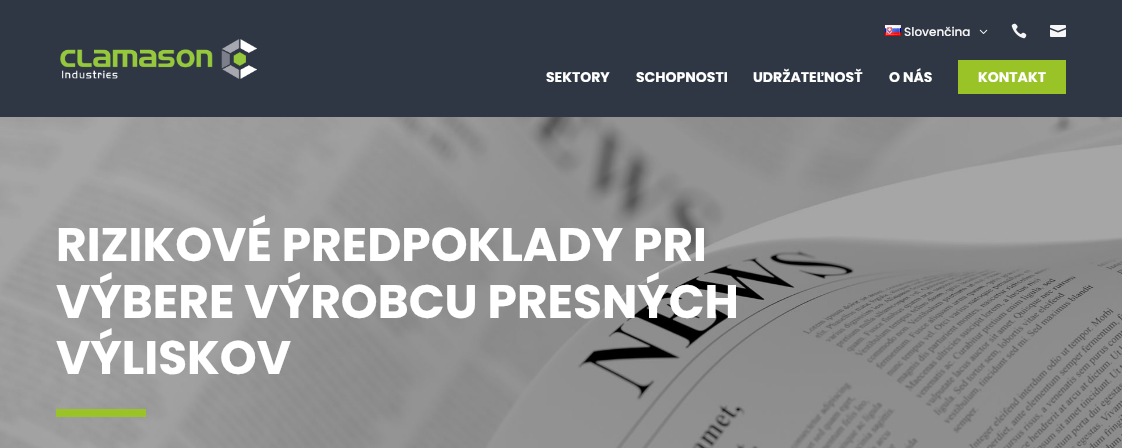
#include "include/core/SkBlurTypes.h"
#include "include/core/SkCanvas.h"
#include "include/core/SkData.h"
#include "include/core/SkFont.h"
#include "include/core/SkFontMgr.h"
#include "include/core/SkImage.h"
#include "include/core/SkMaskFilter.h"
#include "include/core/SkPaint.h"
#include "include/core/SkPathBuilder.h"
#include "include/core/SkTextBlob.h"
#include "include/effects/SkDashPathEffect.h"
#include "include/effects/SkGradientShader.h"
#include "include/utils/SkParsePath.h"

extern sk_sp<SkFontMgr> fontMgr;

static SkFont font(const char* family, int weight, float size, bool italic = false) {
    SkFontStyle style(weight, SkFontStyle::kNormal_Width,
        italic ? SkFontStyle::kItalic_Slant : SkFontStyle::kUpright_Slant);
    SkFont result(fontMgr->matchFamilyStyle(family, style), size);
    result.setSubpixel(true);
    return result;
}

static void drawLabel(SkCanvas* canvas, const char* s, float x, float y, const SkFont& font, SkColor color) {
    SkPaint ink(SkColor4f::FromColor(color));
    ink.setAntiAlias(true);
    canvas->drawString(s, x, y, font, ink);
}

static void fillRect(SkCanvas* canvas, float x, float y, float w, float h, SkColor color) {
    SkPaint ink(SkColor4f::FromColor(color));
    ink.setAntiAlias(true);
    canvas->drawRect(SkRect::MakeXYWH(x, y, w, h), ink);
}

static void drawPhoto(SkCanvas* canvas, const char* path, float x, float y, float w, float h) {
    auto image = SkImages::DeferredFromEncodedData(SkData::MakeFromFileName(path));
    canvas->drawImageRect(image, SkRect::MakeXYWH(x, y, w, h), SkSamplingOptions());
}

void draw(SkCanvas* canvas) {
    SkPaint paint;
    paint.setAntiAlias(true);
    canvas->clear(0xFFFFFFFF);
    fillRect(canvas, 0, 0, 1122, 117, 0xFF2F3744);
    drawPhoto(canvas, "assets/img1.png", 885, 25, 16, 11);
    SkFont font1 = font("Poppins", 500, 12);
    drawLabel(canvas, "Slovenčina", 904, 36, font1, 0xFFF6F6F7);
    drawPhoto(canvas, "assets/img2.png", 979, 29, 9, 5);
    drawPhoto(canvas, "assets/img3.png", 1011, 23, 16, 16);
    drawPhoto(canvas, "assets/img4.png", 1050, 25, 16, 12);
    drawPhoto(canvas, "assets/img5.png", 60, 39, 197, 40);
    SkFont font2 = font("Poppins", 700, 14);
    drawLabel(canvas, "SEKTORY", 546, 82, font2, 0xFFFFFFFF);
    drawLabel(canvas, "SCHOPNOSTI", 636, 82, font2, 0xFFFFFFFF);
    drawLabel(canvas, "UDRŽATEĽNOSŤ", 753, 82, font2, 0xFFFFFFFF);
    drawLabel(canvas, "O NÁS", 889, 82, font2, 0xFFFFFFFF);
    fillRect(canvas, 958, 60, 108, 34, 0xFF99C326);
    drawLabel(canvas, "KONTAKT", 978, 82, font2, 0xFFFFFFFF);
    drawPhoto(canvas, "assets/img6.png", 0, 117, 1122, 331);
    SkFont font3 = font("Poppins", 700, 47);
    drawLabel(canvas, "RIZIKOVÉ PREDPOKLADY PRI", 56, 261, font3, 0xFFFFFFFF);
    drawLabel(canvas, "VÝBERE VÝROBCU PRESNÝCH", 56, 318, font3, 0xFFFFFFFF);
    drawLabel(canvas, "VÝLISKOV", 56, 374, font3, 0xFFFFFFFF);
    fillRect(canvas, 56, 409, 90, 8, 0xFF99C326);
}
